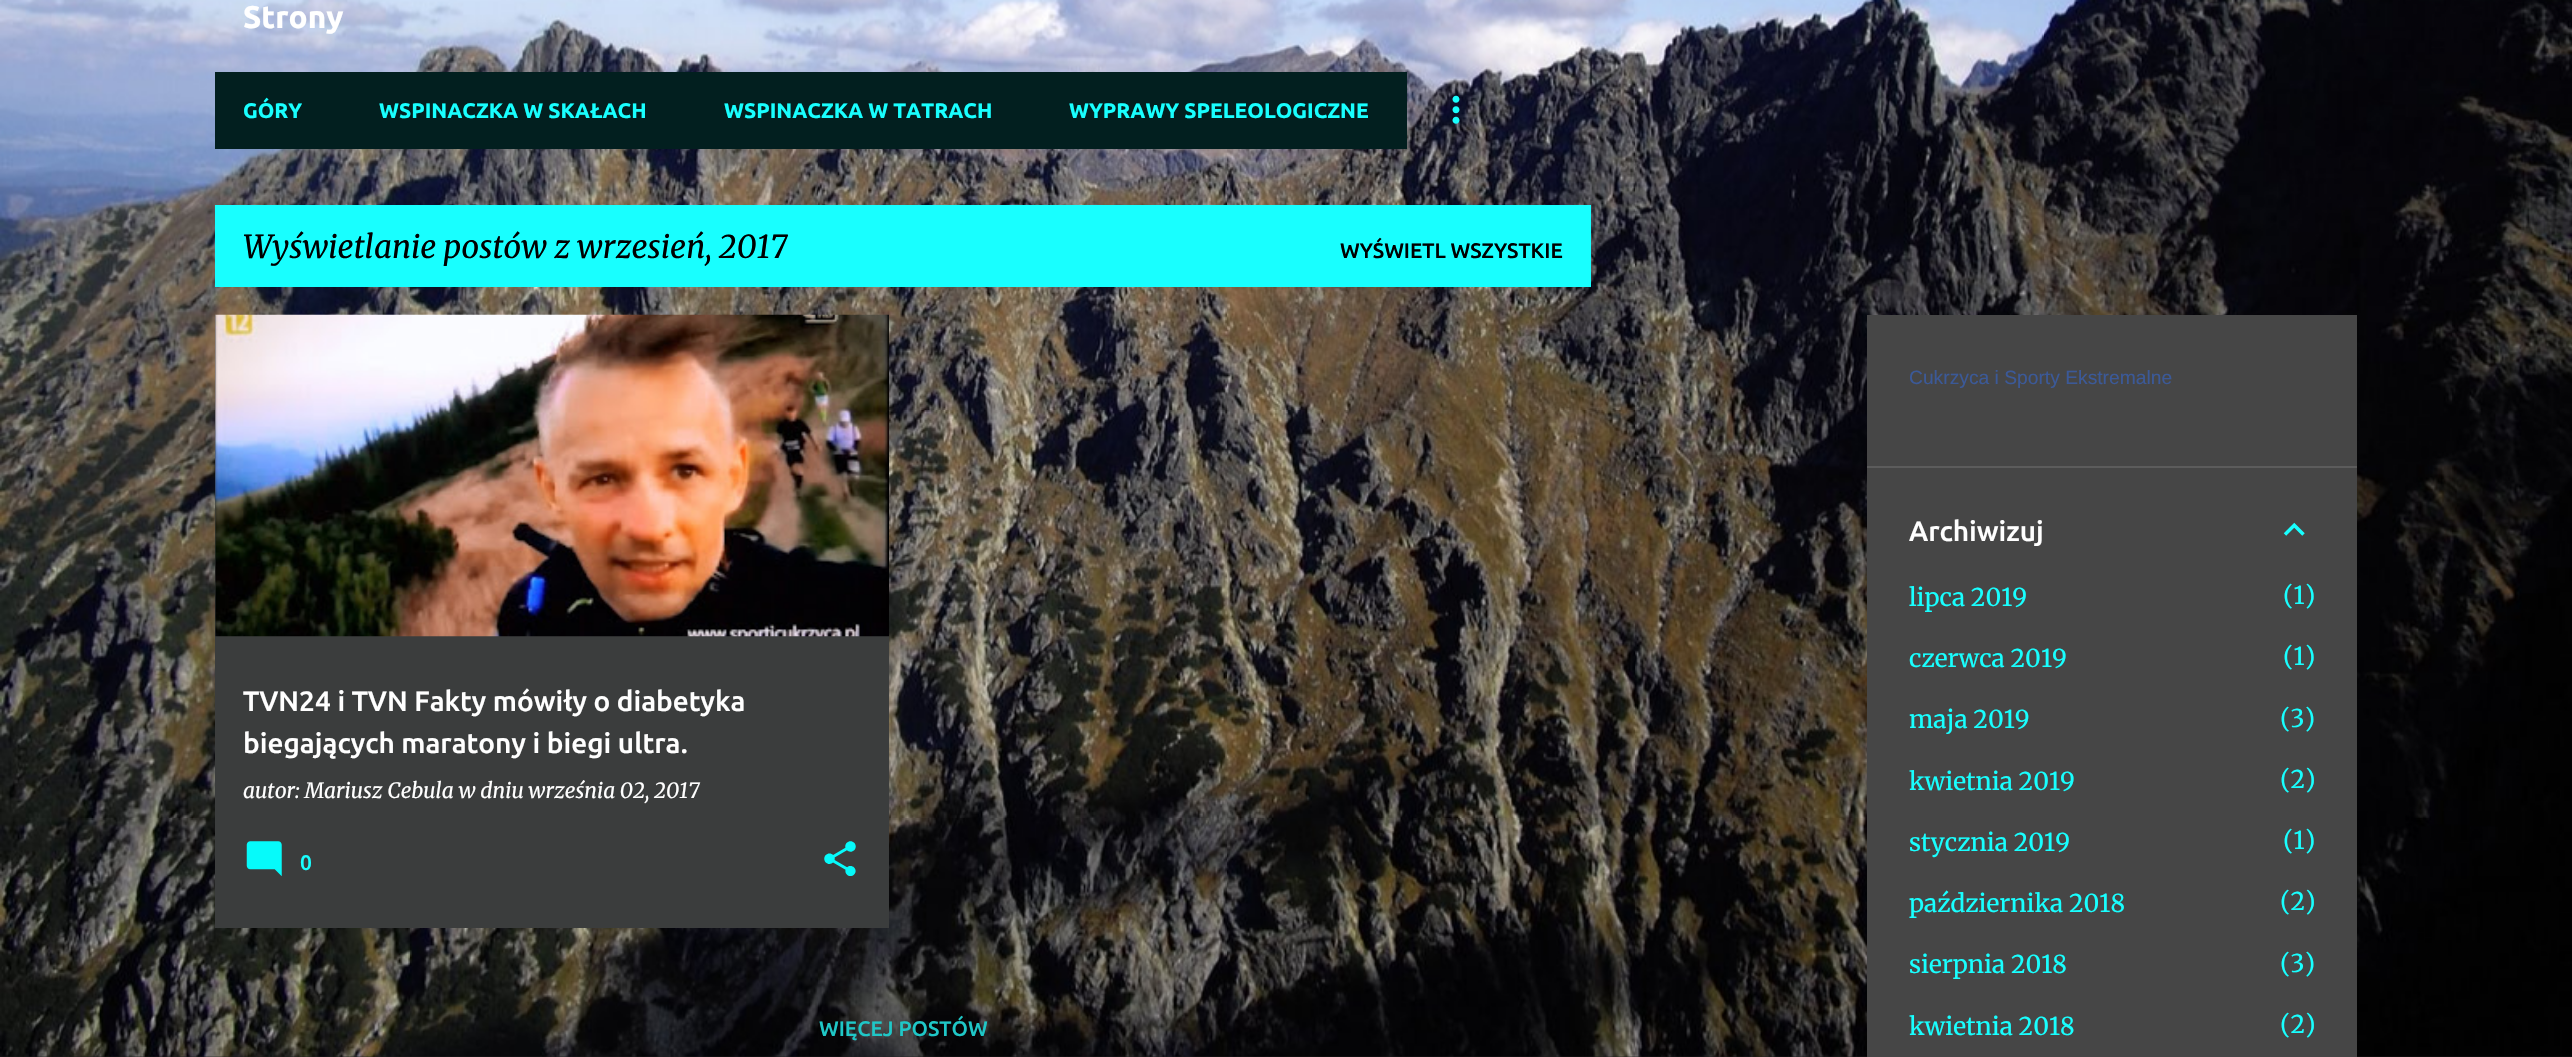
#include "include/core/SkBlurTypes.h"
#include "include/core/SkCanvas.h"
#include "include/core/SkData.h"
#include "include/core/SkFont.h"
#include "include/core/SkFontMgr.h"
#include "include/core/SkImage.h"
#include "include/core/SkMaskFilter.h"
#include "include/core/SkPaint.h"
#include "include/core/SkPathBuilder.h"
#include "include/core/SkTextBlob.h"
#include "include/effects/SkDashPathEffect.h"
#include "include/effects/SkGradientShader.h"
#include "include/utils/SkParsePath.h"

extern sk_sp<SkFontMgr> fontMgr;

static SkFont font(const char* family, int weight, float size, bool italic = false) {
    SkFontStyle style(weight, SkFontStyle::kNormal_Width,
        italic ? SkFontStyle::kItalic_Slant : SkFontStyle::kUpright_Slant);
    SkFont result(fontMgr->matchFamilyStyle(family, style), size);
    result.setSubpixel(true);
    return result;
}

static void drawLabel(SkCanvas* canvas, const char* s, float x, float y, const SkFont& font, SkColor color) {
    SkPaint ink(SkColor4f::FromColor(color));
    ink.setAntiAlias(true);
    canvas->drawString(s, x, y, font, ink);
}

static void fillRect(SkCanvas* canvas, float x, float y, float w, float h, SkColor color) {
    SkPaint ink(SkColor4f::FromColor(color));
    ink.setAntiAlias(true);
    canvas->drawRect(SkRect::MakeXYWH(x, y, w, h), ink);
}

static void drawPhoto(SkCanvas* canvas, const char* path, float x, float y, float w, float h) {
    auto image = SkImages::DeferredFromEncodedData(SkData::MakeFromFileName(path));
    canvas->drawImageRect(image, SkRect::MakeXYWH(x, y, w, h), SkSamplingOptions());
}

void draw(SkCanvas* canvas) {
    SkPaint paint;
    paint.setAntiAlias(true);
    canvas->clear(0xFF212121);
    drawPhoto(canvas, "assets/img1.png", 0, 0, 2572, 1057);
    SkFont font1 = font("Ubuntu", 700, 31.5f);
    drawLabel(canvas, "Strony", 243, 28, font1, 0xFFFFFFFF);
    fillRect(canvas, 215, 72, 1192, 77, 0xFF021F1F);
    SkFont font2 = font("Ubuntu", 700, 21);
    drawLabel(canvas, "GÓRY", 243, 118, font2, 0xFF18FFFF);
    drawLabel(canvas, "WSPINACZKA W SKAŁACH", 379, 118, font2, 0xFF18FFFF);
    drawLabel(canvas, "WSPINACZKA W TATRACH", 724, 118, font2, 0xFF18FFFF);
    drawLabel(canvas, "WYPRAWY SPELEOLOGICZNE", 1069, 118, font2, 0xFF18FFFF);
    drawPhoto(canvas, "assets/img2.png", 1452, 95, 8, 29);
    fillRect(canvas, 215, 205, 1376, 82, 0xFF18FFFF);
    SkFont font3 = font("Merriweather", 400, 31.5f, true);
    drawLabel(canvas, "Wyświetlanie postów z wrzesień, 2017", 243, 258, font3, 0xFF000000);
    SkFont font4 = font("Ubuntu", 500, 21);
    drawLabel(canvas, "WYŚWIETL WSZYSTKIE", 1340, 258, font4, 0xFF000000);
    fillRect(canvas, 215, 315, 674, 613, 0xFF3B3D3D);
    drawPhoto(canvas, "assets/img3.png", 215, 314, 674, 323);
    SkFont font5 = font("Ubuntu", 500, 28);
    drawLabel(canvas, "TVN24 i TVN Fakty mówiły o diabetyka", 243, 711, font5, 0xFFFFFFFF);
    drawLabel(canvas, "biegających maratony i biegi ultra.", 243, 753, font5, 0xFFFFFFFF);
    SkFont font6 = font("Merriweather", 400, 21, true);
    drawLabel(canvas, "autor: Mariusz Cebula w dniu września 02, 2017", 243, 798, font6, 0xFFFFFFFF);
    drawPhoto(canvas, "assets/img4.png", 246, 841, 36, 35);
    drawLabel(canvas, "0", 300, 870, font4, 0xFF18FFFF);
    drawPhoto(canvas, "assets/img5.png", 824, 841, 32, 35);
    drawLabel(canvas, "WIĘCEJ POSTÓW", 819, 1036, font4, 0xFF1FC7C7);
    fillRect(canvas, 1867, 315, 490, 742, 0xFF464646);
    SkFont font7 = font("Liberation Sans", 400, 19.25f);
    drawLabel(canvas, "Cukrzyca i Sporty Ekstremalne", 1909, 384, font7, 0xFF3B5998);
    fillRect(canvas, 1867, 466, 490, 2, 0xFF5C5C5C);
    canvas->save();
    canvas->clipRect(SkRect::MakeXYWH(1909, 515, 364, 31));
    drawLabel(canvas, "Archiwizuj", 1909, 541, font5, 0xFFFFFFFF);
    canvas->restore();
    drawPhoto(canvas, "assets/img6.png", 2283, 522, 22, 14);
    SkFont font8 = font("Merriweather", 300, 24.5f);
    drawLabel(canvas, "lipca 2019", 1909, 606, font8, 0xFF18FFFF);
    drawLabel(canvas, "(1)", 2283, 604, font8, 0xFF18FFFF);
    drawLabel(canvas, "czerwca 2019", 1909, 667, font8, 0xFF18FFFF);
    drawLabel(canvas, "(1)", 2283, 665, font8, 0xFF18FFFF);
    drawLabel(canvas, "maja 2019", 1909, 728, font8, 0xFF18FFFF);
    drawLabel(canvas, "(3)", 2280, 727, font8, 0xFF18FFFF);
    drawLabel(canvas, "kwietnia 2019", 1909, 790, font8, 0xFF18FFFF);
    drawLabel(canvas, "(2)", 2280, 788, font8, 0xFF18FFFF);
    drawLabel(canvas, "stycznia 2019", 1909, 851, font8, 0xFF18FFFF);
    drawLabel(canvas, "(1)", 2283, 849, font8, 0xFF18FFFF);
    drawLabel(canvas, "października 2018", 1909, 912, font8, 0xFF18FFFF);
    drawLabel(canvas, "(2)", 2280, 910, font8, 0xFF18FFFF);
    drawLabel(canvas, "sierpnia 2018", 1909, 973, font8, 0xFF18FFFF);
    drawLabel(canvas, "(3)", 2280, 972, font8, 0xFF18FFFF);
    drawLabel(canvas, "kwietnia 2018", 1909, 1035, font8, 0xFF18FFFF);
    drawLabel(canvas, "(2)", 2280, 1033, font8, 0xFF18FFFF);
}
